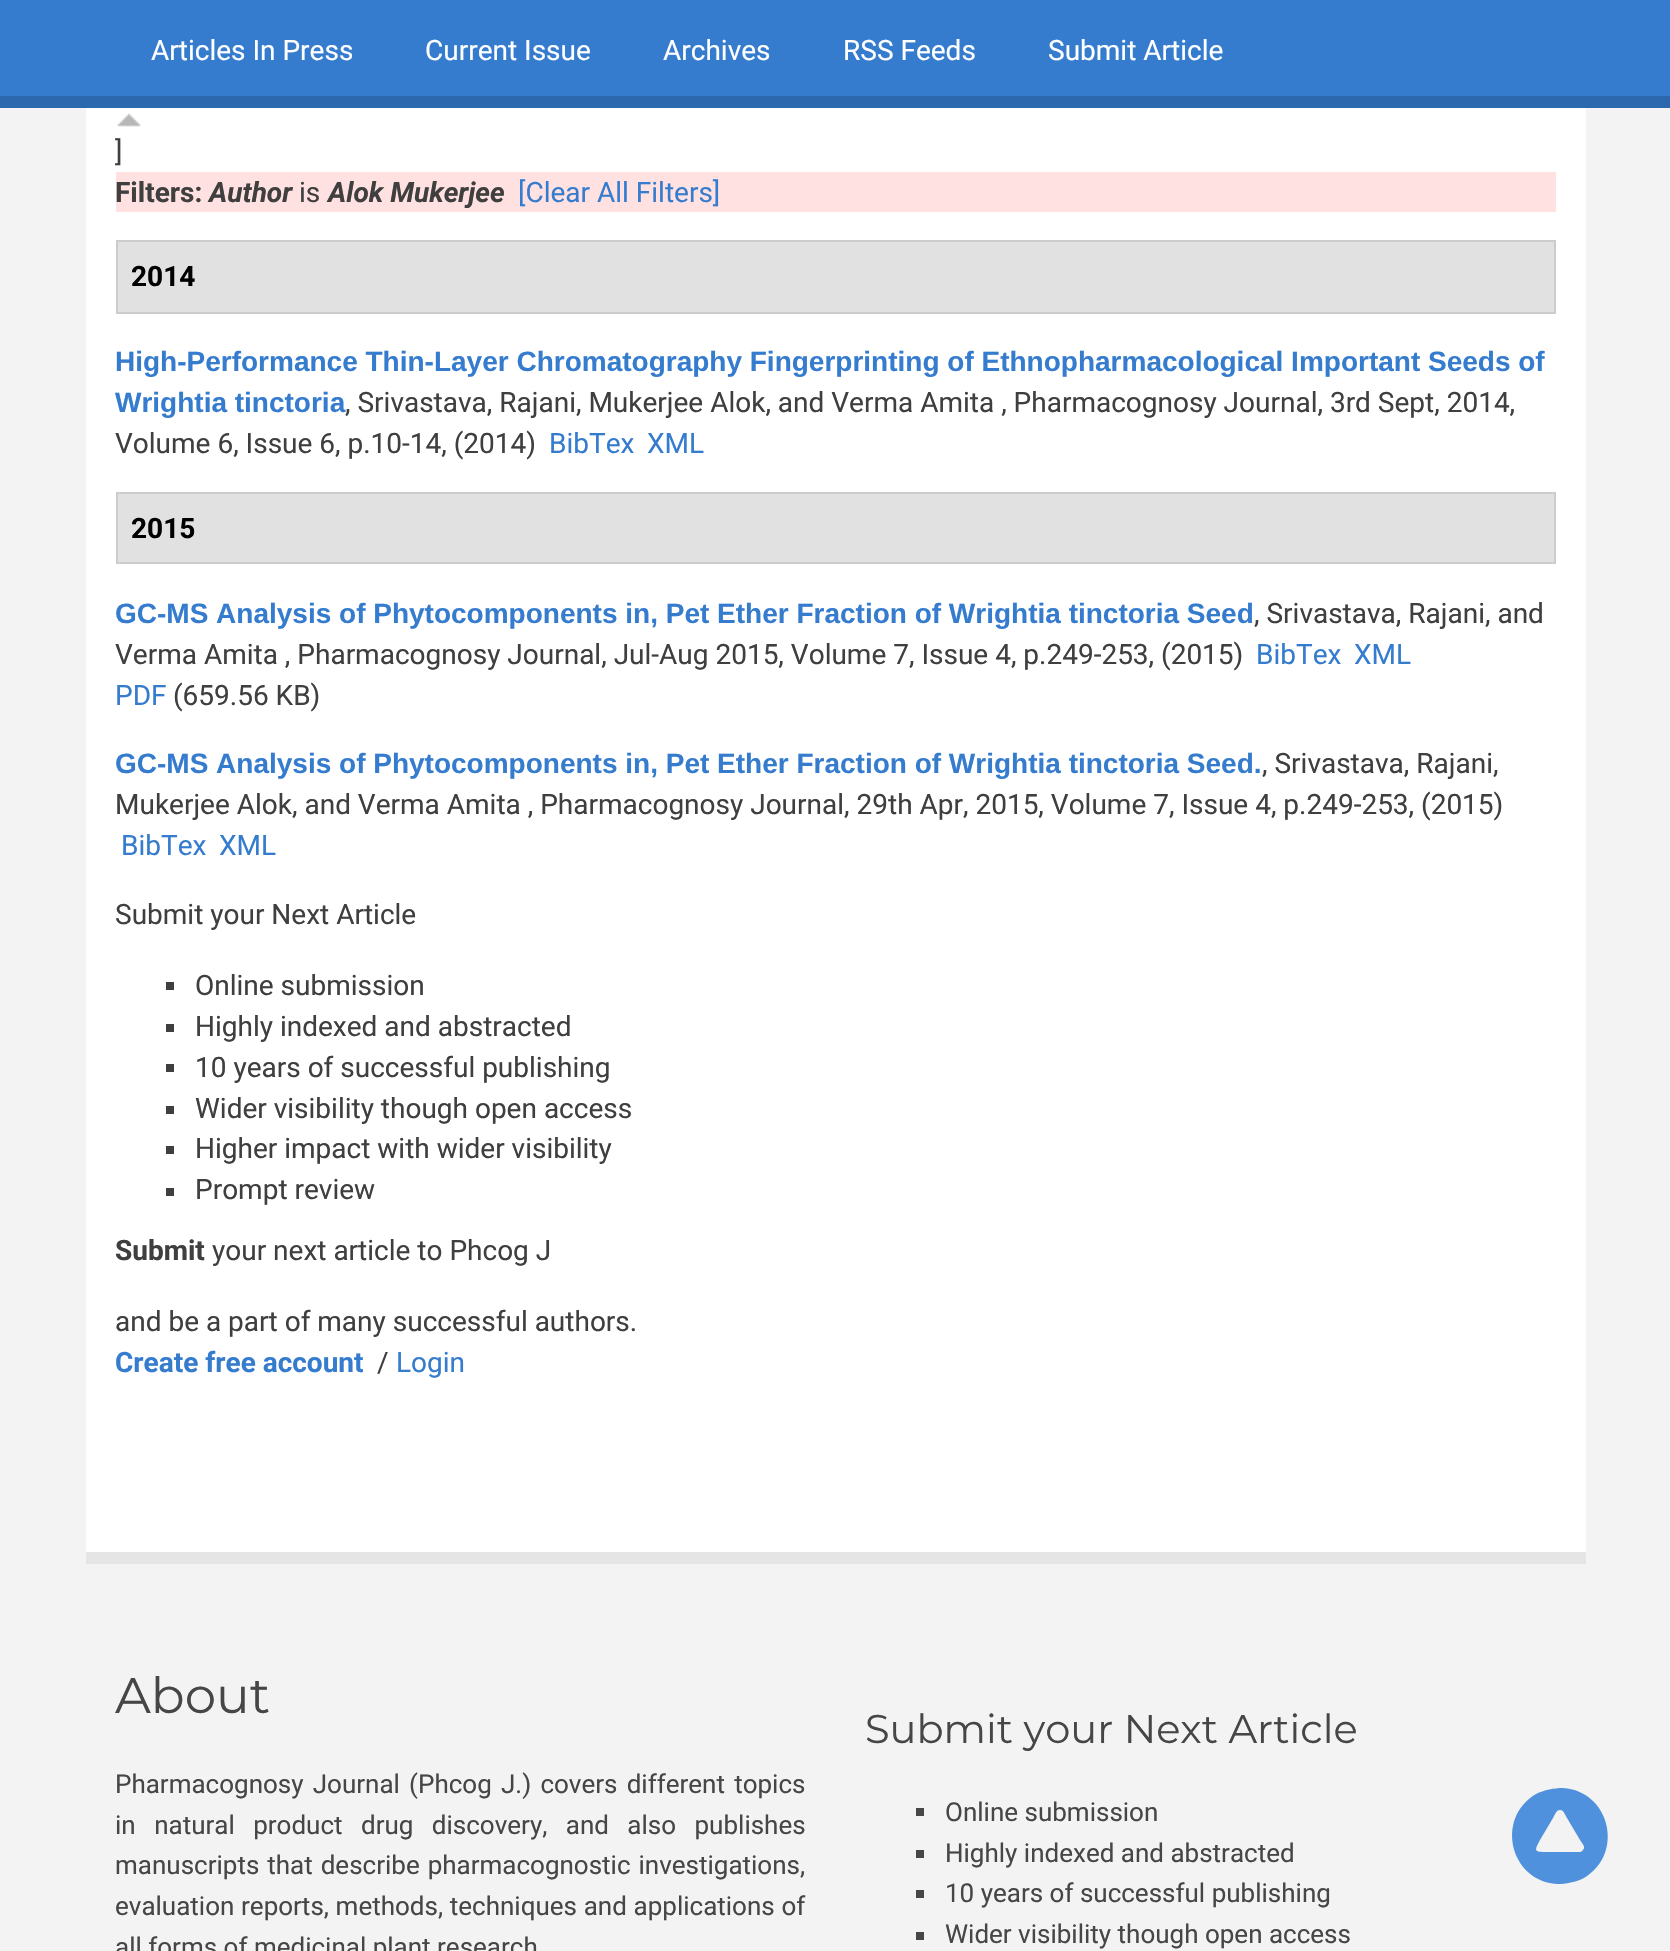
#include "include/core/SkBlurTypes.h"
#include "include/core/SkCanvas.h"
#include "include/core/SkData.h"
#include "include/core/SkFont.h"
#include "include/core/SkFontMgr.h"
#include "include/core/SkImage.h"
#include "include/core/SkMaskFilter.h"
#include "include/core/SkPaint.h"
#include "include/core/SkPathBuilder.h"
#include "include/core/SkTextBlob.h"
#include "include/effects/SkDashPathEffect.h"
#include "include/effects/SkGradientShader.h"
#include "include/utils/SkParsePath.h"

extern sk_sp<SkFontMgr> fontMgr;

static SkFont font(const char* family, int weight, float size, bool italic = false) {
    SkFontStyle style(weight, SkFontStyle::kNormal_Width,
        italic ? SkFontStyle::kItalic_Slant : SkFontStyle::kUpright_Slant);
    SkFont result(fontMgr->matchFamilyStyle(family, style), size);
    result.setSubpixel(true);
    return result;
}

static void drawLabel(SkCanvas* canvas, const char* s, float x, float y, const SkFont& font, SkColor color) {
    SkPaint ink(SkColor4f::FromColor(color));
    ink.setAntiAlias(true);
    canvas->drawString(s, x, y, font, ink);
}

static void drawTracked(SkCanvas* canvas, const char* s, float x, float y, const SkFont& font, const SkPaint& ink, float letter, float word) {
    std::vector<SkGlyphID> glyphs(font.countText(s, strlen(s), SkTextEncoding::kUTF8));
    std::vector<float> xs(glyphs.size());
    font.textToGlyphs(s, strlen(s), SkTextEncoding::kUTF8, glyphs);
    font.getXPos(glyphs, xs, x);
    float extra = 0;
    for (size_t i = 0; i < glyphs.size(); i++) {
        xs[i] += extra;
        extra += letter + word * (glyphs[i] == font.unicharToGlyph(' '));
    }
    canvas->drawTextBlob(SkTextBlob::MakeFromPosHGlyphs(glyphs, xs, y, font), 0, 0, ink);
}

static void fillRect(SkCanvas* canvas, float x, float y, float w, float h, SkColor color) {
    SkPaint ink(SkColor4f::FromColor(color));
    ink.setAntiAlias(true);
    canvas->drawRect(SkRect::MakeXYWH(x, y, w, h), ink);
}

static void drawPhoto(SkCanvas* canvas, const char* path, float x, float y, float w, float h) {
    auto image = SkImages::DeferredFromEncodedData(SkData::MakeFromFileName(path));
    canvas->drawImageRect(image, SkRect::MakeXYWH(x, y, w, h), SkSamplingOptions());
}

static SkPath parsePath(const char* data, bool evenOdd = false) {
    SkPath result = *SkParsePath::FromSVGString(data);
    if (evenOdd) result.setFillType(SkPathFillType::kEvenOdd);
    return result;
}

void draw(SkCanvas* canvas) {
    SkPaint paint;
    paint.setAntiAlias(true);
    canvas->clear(0xFFF3F3F3);
    fillRect(canvas, 0, 0, 1670, 96, 0xFF357CCE);
    fillRect(canvas, 0, 96, 1670, 12, 0xFF2C68AD);
    SkFont font1 = font("Roboto", 400, 28);
    drawLabel(canvas, "Articles In Press", 151, 60, font1, 0xFFFFFFFF);
    drawLabel(canvas, "Current Issue", 425, 60, font1, 0xFFFFFFFF);
    drawLabel(canvas, "Archives", 663, 60, font1, 0xFFFFFFFF);
    drawLabel(canvas, "RSS Feeds", 843, 60, font1, 0xFFFFFFFF);
    drawLabel(canvas, "Submit Article", 1048, 60, font1, 0xFFFFFFFF);
    fillRect(canvas, 86, 108, 1500, 1444, 0xFFFFFFFF);
    fillRect(canvas, 86, 1552, 1500, 12, 0xFFE5E5E5);
    drawPhoto(canvas, "assets/img1.png", 117, 113, 24, 14);
    drawLabel(canvas, "]", 115, 161, font1, 0xFF3F3F3F);
    fillRect(canvas, 116, 172, 1440, 40, 0xFFFFE1E1);
    SkFont font2 = font("Roboto", 700, 28);
    drawLabel(canvas, "Filters:", 115, 202, font2, 0xFF3F3F3F);
    SkFont font3 = font("Roboto", 700, 28, true);
    drawLabel(canvas, "Author", 209, 202, font3, 0xFF3F3F3F);
    drawLabel(canvas, "is", 299, 202, font1, 0xFF3F3F3F);
    drawLabel(canvas, "Alok Mukerjee", 328, 202, font3, 0xFF3F3F3F);
    drawLabel(canvas, "[Clear All Filters]", 518, 202, font1, 0xFF357CCE);
    paint.setColor(0xFFE1E1E1);
    canvas->drawRect(SkRect::MakeXYWH(117, 241, 1438, 72), paint);
    paint.setStroke(true);
    paint.setStrokeWidth(2);
    paint.setColor(0xFFCCCCCC);
    canvas->drawRect(SkRect::MakeXYWH(117, 241, 1438, 72), paint);
    drawLabel(canvas, "2014", 131, 286, font2, 0xFF000000);
    SkFont font4 = font("Liberation Sans", 700, 28);
    drawLabel(canvas, "High-Performance Thin-Layer Chromatography Fingerprinting of Ethnopharmacological Important Seeds of", 115, 371, font4, 0xFF357CCE);
    drawLabel(canvas, "Wrightia tinctoria", 115, 412, font4, 0xFF357CCE);
    drawLabel(canvas, ", Srivastava, Rajani, Mukerjee Alok, and Verma Amita , Pharmacognosy Journal, 3rd Sept, 2014,", 345, 412, font1, 0xFF3F3F3F);
    drawLabel(canvas, "Volume 6, Issue 6, p.10-14, (2014)", 115, 453, font1, 0xFF3F3F3F);
    drawLabel(canvas, "BibTex", 549, 453, font1, 0xFF357CCE);
    drawLabel(canvas, "XML", 647, 453, font1, 0xFF357CCE);
    paint.setStroke(false);
    paint.setColor(0xFFE1E1E1);
    canvas->drawRect(SkRect::MakeXYWH(117, 493, 1438, 70), paint);
    paint.setStroke(true);
    paint.setColor(0xFFCCCCCC);
    canvas->drawRect(SkRect::MakeXYWH(117, 493, 1438, 70), paint);
    drawLabel(canvas, "2015", 131, 538, font2, 0xFF000000);
    drawLabel(canvas, "GC-MS Analysis of Phytocomponents in, Pet Ether Fraction of Wrightia tinctoria Seed", 115, 623, font4, 0xFF357CCE);
    drawLabel(canvas, ", Srivastava, Rajani, and", 1254, 623, font1, 0xFF3F3F3F);
    drawLabel(canvas, "Verma Amita , Pharmacognosy Journal, Jul-Aug 2015, Volume 7, Issue 4, p.249-253, (2015)", 115, 664, font1, 0xFF3F3F3F);
    drawLabel(canvas, "BibTex", 1256, 664, font1, 0xFF357CCE);
    drawLabel(canvas, "XML", 1354, 664, font1, 0xFF357CCE);
    drawLabel(canvas, "PDF", 115, 705, font1, 0xFF357CCE);
    drawLabel(canvas, "(659.56 KB)", 173, 705, font1, 0xFF3F3F3F);
    drawLabel(canvas, "GC-MS Analysis of Phytocomponents in, Pet Ether Fraction of Wrightia tinctoria Seed.", 115, 773, font4, 0xFF357CCE);
    drawLabel(canvas, ", Srivastava, Rajani,", 1262, 773, font1, 0xFF3F3F3F);
    drawLabel(canvas, "Mukerjee Alok, and Verma Amita , Pharmacognosy Journal, 29th Apr, 2015, Volume 7, Issue 4, p.249-253, (2015)", 115, 814, font1, 0xFF3F3F3F);
    drawLabel(canvas, "BibTex", 121, 855, font1, 0xFF357CCE);
    drawLabel(canvas, "XML", 219, 855, font1, 0xFF357CCE);
    drawLabel(canvas, "Submit your Next Article", 115, 924, font1, 0xFF3F3F3F);
    fillRect(canvas, 166, 982, 8, 8, 0xFF3F3F3F);
    drawLabel(canvas, "Online submission", 195, 995, font1, 0xFF3F3F3F);
    fillRect(canvas, 166, 1024, 8, 8, 0xFF3F3F3F);
    drawLabel(canvas, "Highly indexed and abstracted", 195, 1036, font1, 0xFF3F3F3F);
    fillRect(canvas, 166, 1064, 8, 8, 0xFF3F3F3F);
    drawLabel(canvas, "10 years of successful publishing", 195, 1077, font1, 0xFF3F3F3F);
    fillRect(canvas, 166, 1106, 8, 8, 0xFF3F3F3F);
    drawLabel(canvas, "Wider visibility though open access", 195, 1118, font1, 0xFF3F3F3F);
    fillRect(canvas, 166, 1146, 8, 8, 0xFF3F3F3F);
    drawLabel(canvas, "Higher impact with wider visibility", 195, 1158, font1, 0xFF3F3F3F);
    fillRect(canvas, 166, 1188, 8, 8, 0xFF3F3F3F);
    drawLabel(canvas, "Prompt review", 195, 1199, font1, 0xFF3F3F3F);
    drawLabel(canvas, "Submit", 115, 1260, font2, 0xFF3F3F3F);
    drawLabel(canvas, "your next article to Phcog J", 212, 1260, font1, 0xFF3F3F3F);
    drawLabel(canvas, "and be a part of many successful authors.", 115, 1331, font1, 0xFF3F3F3F);
    drawLabel(canvas, "Create free account", 115, 1372, font2, 0xFF357CCE);
    drawLabel(canvas, "/", 377, 1372, font1, 0xFF3F3F3F);
    drawLabel(canvas, "Login", 396, 1372, font1, 0xFF357CCE);
    SkFont font5 = font("Montserrat", 400, 50);
    drawLabel(canvas, "About", 115, 1713, font5, 0xFF464646);
    SkFont font6 = font("Roboto", 400, 26);
    paint.setStroke(false);
    paint.setColor(0xFF464646);
    drawTracked(canvas, "Pharmacognosy Journal (Phcog J.) covers different topics", 115, 1793, font6, paint, 0, 2.75f);
    drawTracked(canvas, "in natural product drug discovery, and also publishes", 115, 1834, font6, paint, 0, 12);
    drawTracked(canvas, "manuscripts that describe pharmacognostic investigations,", 115, 1874, font6, paint, 0, 1.5f);
    drawTracked(canvas, "evaluation reports, methods, techniques and applications of", 115, 1915, font6, paint, 0, 0.25f);
    drawLabel(canvas, "all forms of medicinal plant research", 115, 1956, font6, 0xFF464646);
    SkFont font7 = font("Montserrat", 400, 40);
    drawLabel(canvas, "Submit your Next Article", 865, 1743, font7, 0xFF464646);
    fillRect(canvas, 916, 1808, 8, 8, 0xFF464646);
    drawLabel(canvas, "Online submission", 945, 1821, font6, 0xFF464646);
    fillRect(canvas, 916, 1850, 8, 8, 0xFF464646);
    drawLabel(canvas, "Highly indexed and abstracted", 945, 1862, font6, 0xFF464646);
    fillRect(canvas, 916, 1890, 8, 8, 0xFF464646);
    drawLabel(canvas, "10 years of successful publishing", 945, 1902, font6, 0xFF464646);
    fillRect(canvas, 916, 1932, 8, 8, 0xFF464646);
    drawLabel(canvas, "Wider visibility though open access", 945, 1943, font6, 0xFF464646);
    paint.setColor(0xFF4F91DD);
    canvas->drawPath(parsePath("M1584 1878C1576 1882 1566 1884 1557 1884C1510 1881 1495 1818 1536 1794C1544 1790 1554 1788 1563 1788C1610 1791 1625 1854 1584 1878ZM1580 1852C1581 1852 1582 1851 1583 1850C1586 1847 1582 1843 1580 1840L1567 1818C1565 1815 1564 1810 1560 1810C1556 1810 1555 1815 1553 1818L1540 1840C1534 1851 1534 1852 1547 1852Z"), paint);
}
